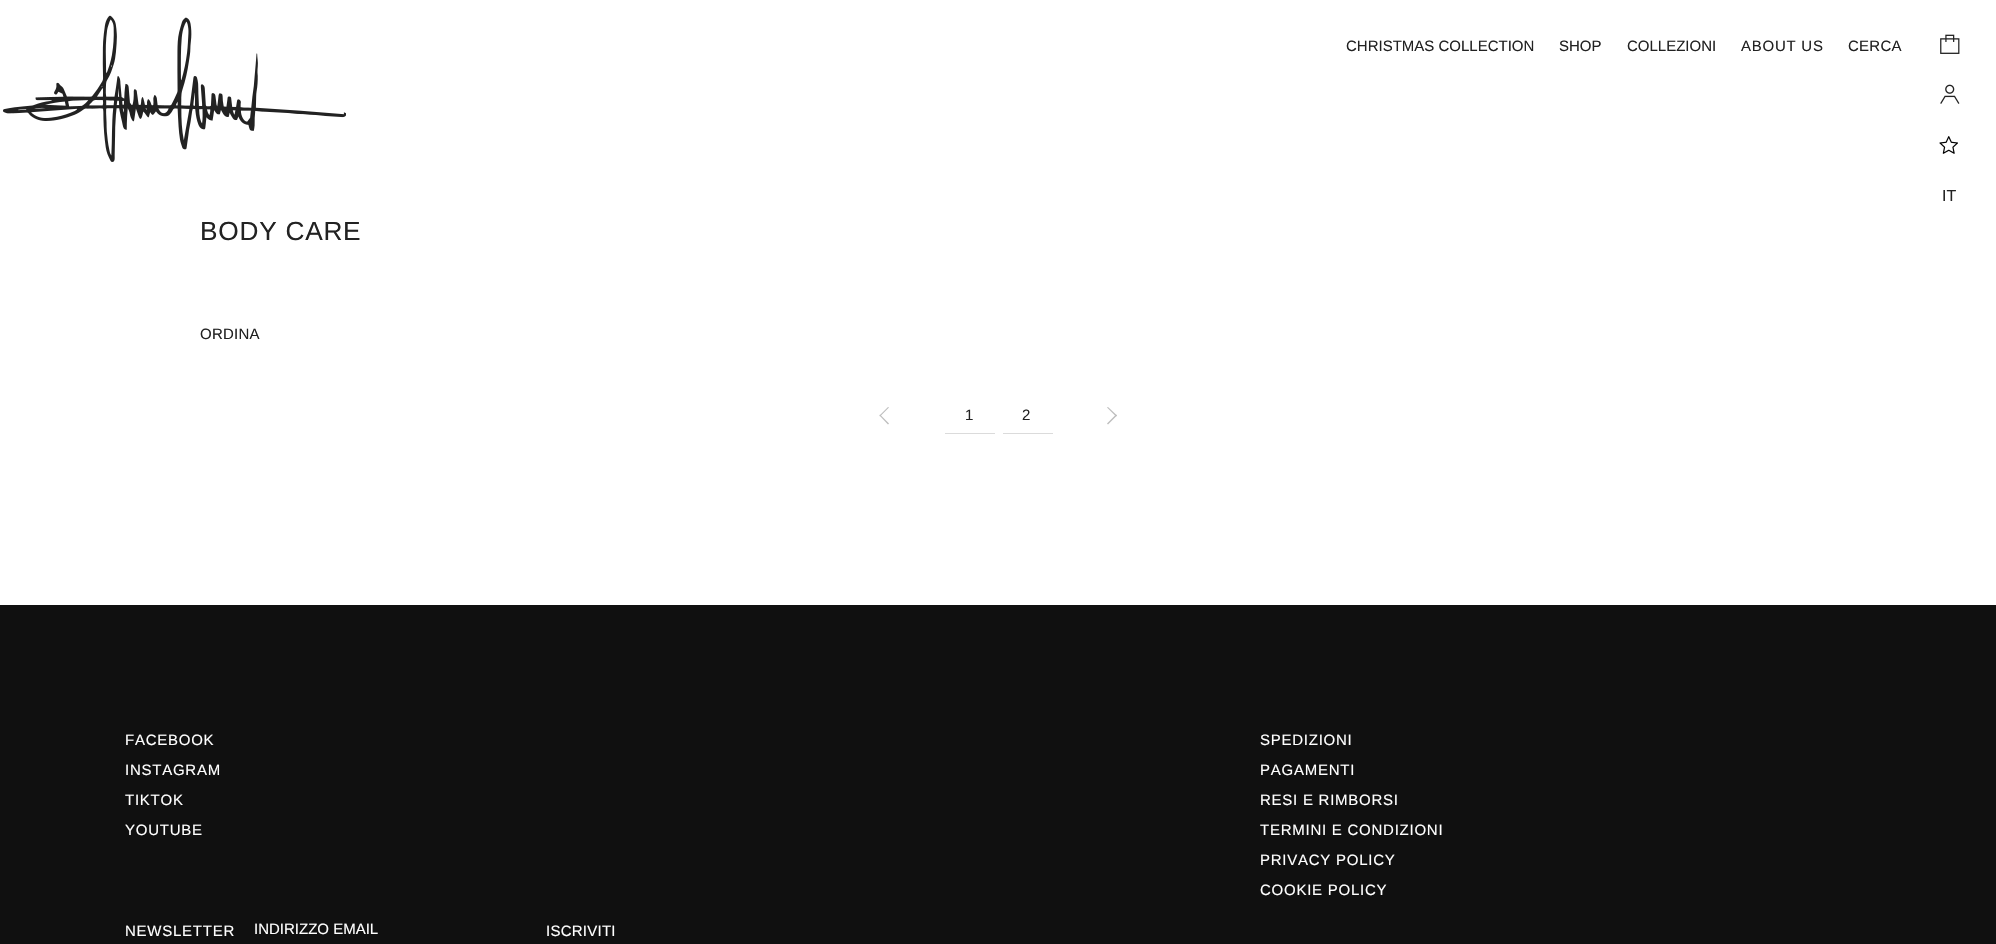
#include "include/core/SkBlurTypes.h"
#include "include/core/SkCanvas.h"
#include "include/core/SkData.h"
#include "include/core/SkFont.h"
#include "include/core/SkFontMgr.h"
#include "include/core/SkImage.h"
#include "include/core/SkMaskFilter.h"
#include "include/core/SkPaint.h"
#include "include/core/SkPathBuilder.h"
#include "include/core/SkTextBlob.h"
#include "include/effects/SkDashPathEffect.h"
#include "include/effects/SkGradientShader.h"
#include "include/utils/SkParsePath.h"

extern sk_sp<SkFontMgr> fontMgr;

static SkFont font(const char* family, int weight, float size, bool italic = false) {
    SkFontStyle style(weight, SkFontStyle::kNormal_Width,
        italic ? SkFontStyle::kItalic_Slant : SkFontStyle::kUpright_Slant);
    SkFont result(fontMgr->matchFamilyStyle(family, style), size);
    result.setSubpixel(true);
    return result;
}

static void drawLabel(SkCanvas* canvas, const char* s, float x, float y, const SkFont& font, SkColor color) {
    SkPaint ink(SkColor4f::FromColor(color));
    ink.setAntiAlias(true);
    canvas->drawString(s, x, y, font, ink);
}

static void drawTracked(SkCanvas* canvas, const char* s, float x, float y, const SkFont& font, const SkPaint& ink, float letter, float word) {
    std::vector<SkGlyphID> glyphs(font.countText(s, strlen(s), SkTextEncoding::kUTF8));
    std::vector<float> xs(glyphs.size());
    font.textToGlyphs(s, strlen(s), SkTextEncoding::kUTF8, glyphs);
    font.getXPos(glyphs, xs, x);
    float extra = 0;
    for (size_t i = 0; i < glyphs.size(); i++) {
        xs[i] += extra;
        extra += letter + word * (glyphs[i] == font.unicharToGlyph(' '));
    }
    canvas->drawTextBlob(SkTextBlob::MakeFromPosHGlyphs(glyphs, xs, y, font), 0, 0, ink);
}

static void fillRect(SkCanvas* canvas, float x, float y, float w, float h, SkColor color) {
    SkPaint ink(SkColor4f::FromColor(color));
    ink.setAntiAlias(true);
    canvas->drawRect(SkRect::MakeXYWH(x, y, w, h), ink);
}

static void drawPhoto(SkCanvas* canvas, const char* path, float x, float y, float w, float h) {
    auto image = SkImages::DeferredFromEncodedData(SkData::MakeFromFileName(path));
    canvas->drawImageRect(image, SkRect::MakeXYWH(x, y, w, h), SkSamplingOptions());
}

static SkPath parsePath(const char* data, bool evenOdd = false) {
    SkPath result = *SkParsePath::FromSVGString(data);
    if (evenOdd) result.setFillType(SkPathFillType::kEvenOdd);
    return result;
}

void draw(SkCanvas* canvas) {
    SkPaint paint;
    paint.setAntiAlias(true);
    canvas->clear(0xFF101010);
    fillRect(canvas, 0, 0, 1996, 605, 0xFFFFFFFF);
    drawPhoto(canvas, "assets/img1.png", 3, 15, 343, 147);
    SkFont font1 = font("Liberation Sans", 400, 15);
    drawLabel(canvas, "CHRISTMAS COLLECTION", 1346, 51, font1, 0xFF222222);
    drawLabel(canvas, "SHOP", 1559, 51, font1, 0xFF222222);
    drawLabel(canvas, "COLLEZIONI", 1627, 51, font1, 0xFF222222);
    paint.setColor(0xFF222222);
    drawTracked(canvas, "ABOUT US", 1741, 51, font1, paint, 0.75f, 0);
    drawTracked(canvas, "CERCA", 1848, 51, font1, paint, 0.25f, 0);
    drawPhoto(canvas, "assets/img2.png", 1940, 34, 20, 20);
    drawPhoto(canvas, "assets/img3.png", 1940, 84, 20, 20);
    drawPhoto(canvas, "assets/img4.png", 1939, 136, 19, 18);
    SkFont font2 = font("Liberation Sans", 400, 16);
    drawLabel(canvas, "IT", 1942, 201, font2, 0xFF222222);
    SkFont font3 = font("Liberation Sans", 400, 26.25f);
    drawTracked(canvas, "BODY CARE", 200, 240, font3, paint, 0.75f, 0);
    drawTracked(canvas, "ORDINA", 200, 339, font1, paint, 0.25f, 0);
    paint.setColor(0xFFBDBDBD);
    canvas->drawPath(parsePath("M880 414.5L889 423.5L888 424.5L879.5 415.5Z"), paint);
    canvas->drawPath(parsePath("M888 407L889 407.5L880 416.5L879.5 415.5Z"), paint);
    fillRect(canvas, 945, 433, 50, 1, 0xFFDBDBDB);
    paint.setColor(0xFF222222);
    drawTracked(canvas, "1", 965, 420, font1, paint, 0.75f, 0);
    fillRect(canvas, 1003, 433, 50, 1, 0xFFDBDBDB);
    drawTracked(canvas, "2", 1022, 420, font1, paint, 0.75f, 0);
    paint.setColor(0xFFBDBDBD);
    canvas->drawPath(parsePath("M1116 416.5L1107 407.5L1108 407L1117 415.5Z"), paint);
    canvas->drawPath(parsePath("M1108 424.5L1107 423.5L1116 414.5L1117 415.5Z"), paint);
    paint.setColor(0xFFFFFFFF);
    drawTracked(canvas, "FACEBOOK", 125, 745, font1, paint, 0.75f, 0);
    drawTracked(canvas, "INSTAGRAM", 125, 775, font1, paint, 0.75f, 0);
    drawTracked(canvas, "TIKTOK", 125, 805, font1, paint, 0.75f, 0);
    drawTracked(canvas, "YOUTUBE", 125, 835, font1, paint, 0.75f, 0);
    drawTracked(canvas, "NEWSLETTER", 125, 936, font1, paint, 0.75f, 0);
    drawLabel(canvas, "INDIRIZZO EMAIL", 254, 934, font1, 0xFFFFFFFF);
    drawTracked(canvas, "ISCRIVITI", 546, 936, font1, paint, 0.25f, 0);
    drawTracked(canvas, "SPEDIZIONI", 1260, 745, font1, paint, 0.75f, 0);
    drawTracked(canvas, "PAGAMENTI", 1260, 775, font1, paint, 0.75f, 0);
    drawTracked(canvas, "RESI E RIMBORSI", 1260, 805, font1, paint, 0.75f, 0);
    drawTracked(canvas, "TERMINI E CONDIZIONI", 1260, 835, font1, paint, 0.75f, 0);
    drawTracked(canvas, "PRIVACY POLICY", 1260, 865, font1, paint, 0.75f, 0);
    drawTracked(canvas, "COOKIE POLICY", 1260, 895, font1, paint, 0.75f, 0);
}
